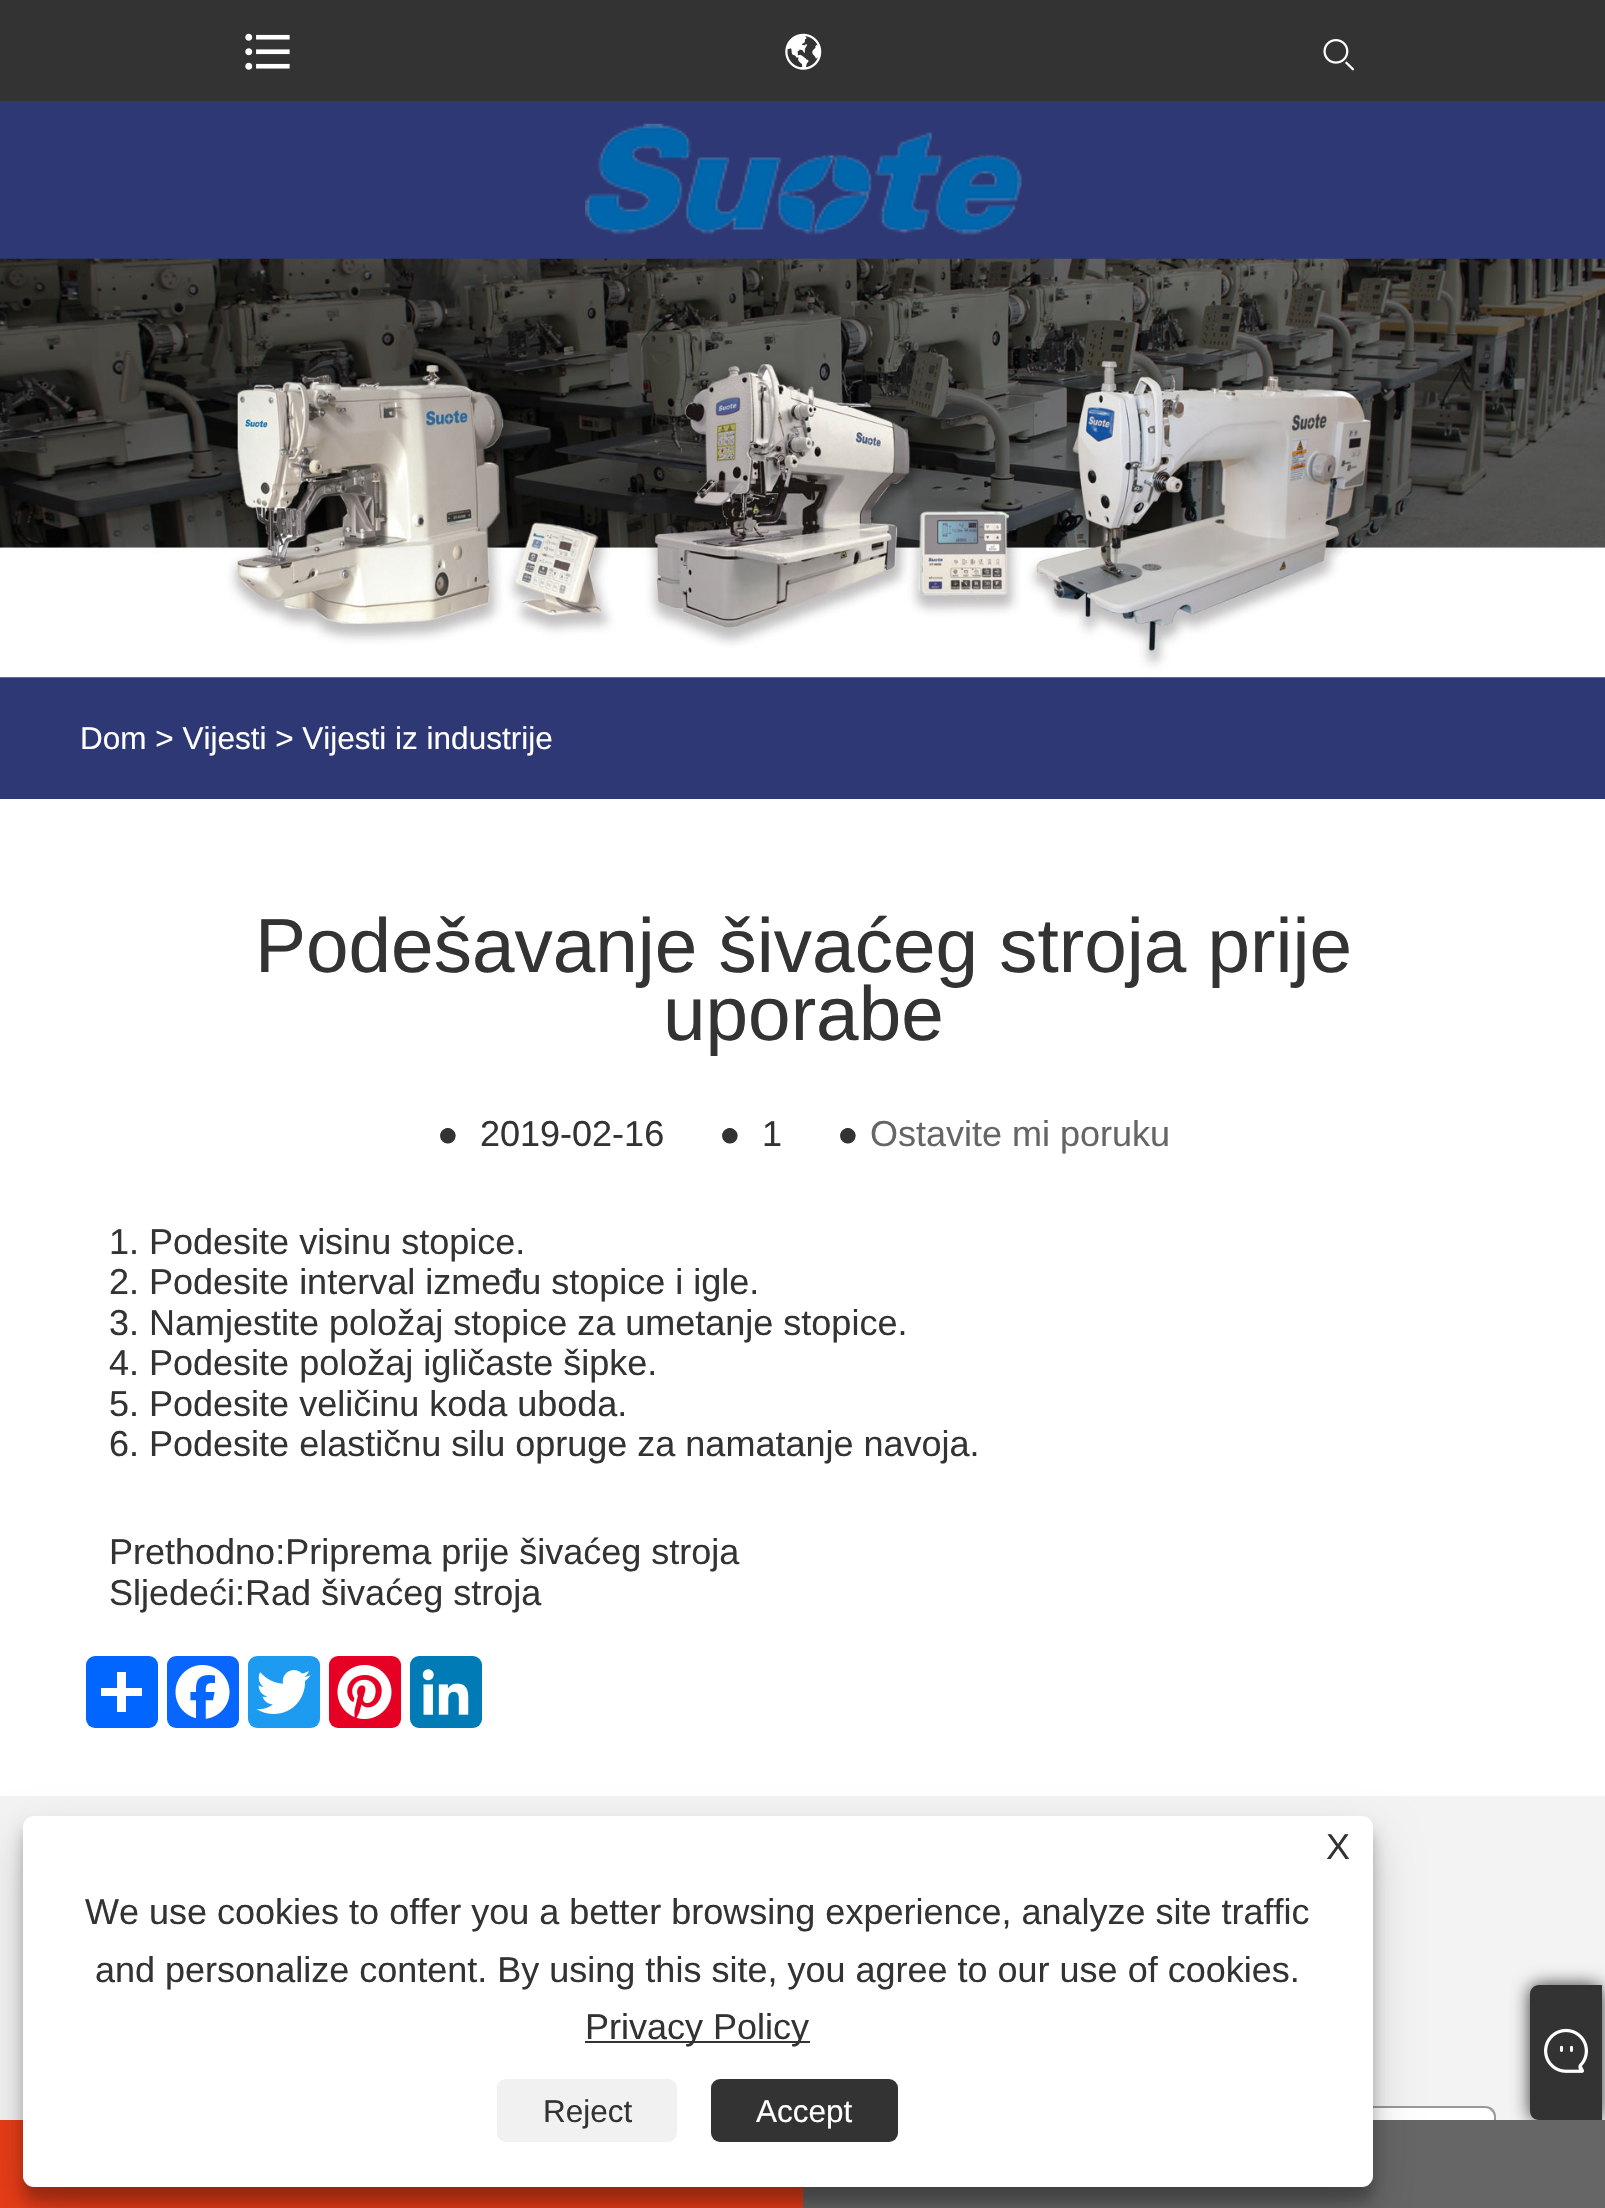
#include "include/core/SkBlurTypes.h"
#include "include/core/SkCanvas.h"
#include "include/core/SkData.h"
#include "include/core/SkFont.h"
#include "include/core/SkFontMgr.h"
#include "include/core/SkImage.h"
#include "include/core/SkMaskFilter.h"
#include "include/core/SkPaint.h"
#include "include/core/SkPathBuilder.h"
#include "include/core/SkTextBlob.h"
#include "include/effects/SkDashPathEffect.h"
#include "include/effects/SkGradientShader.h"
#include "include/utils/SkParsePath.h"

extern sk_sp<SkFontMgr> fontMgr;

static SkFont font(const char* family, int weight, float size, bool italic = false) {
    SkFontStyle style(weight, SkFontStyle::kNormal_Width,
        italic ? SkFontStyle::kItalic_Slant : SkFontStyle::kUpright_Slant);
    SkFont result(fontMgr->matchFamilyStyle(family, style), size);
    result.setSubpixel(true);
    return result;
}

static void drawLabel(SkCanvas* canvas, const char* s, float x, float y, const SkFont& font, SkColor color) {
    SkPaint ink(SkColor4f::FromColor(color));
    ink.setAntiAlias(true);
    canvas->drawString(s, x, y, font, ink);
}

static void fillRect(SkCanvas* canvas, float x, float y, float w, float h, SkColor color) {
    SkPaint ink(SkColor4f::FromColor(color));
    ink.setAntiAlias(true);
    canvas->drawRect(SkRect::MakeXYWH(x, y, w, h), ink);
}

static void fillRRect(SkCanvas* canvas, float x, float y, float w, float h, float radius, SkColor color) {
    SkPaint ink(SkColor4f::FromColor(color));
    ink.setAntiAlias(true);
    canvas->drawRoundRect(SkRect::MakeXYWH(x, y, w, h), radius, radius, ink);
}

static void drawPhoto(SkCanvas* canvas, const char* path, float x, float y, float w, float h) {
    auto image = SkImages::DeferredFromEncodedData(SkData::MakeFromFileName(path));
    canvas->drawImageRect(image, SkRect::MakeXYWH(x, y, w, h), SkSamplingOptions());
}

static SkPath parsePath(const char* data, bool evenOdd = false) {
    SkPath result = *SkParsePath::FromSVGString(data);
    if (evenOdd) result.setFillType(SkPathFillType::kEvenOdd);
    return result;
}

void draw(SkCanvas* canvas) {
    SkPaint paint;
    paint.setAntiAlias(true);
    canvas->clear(0xFFFFFFFF);
    fillRect(canvas, 0, 0, 1605, 101, 0xFF333333);
    drawPhoto(canvas, "assets/img1.png", 245, 33, 45, 37);
    drawPhoto(canvas, "assets/img2.png", 785, 33, 37, 37);
    drawPhoto(canvas, "assets/img3.png", 1323, 39, 32, 32);
    fillRect(canvas, 0, 101, 1605, 158, 0xFF2E3875);
    drawPhoto(canvas, "assets/img4.png", 585, 123, 437, 112);
    fillRect(canvas, 0, 677, 1605, 122, 0xFF2E3875);
    drawPhoto(canvas, "assets/img5.png", 0, 258, 1605, 420);
    SkFont font1 = font("Liberation Sans", 400, 31.5f);
    drawLabel(canvas, "Dom > Vijesti > Vijesti iz industrije", 80, 749, font1, 0xFFFFFFFF);
    SkFont font2 = font("Liberation Sans", 400, 76.5f);
    drawLabel(canvas, "Podešavanje šivaćeg stroja prije", 255, 972, font2, 0xFF333333);
    drawLabel(canvas, "uporabe", 663, 1040, font2, 0xFF333333);
    SkFont font3 = font("Liberation Sans", 400, 36);
    drawLabel(canvas, "●", 437, 1146, font3, 0xFF333333);
    drawLabel(canvas, "2019-02-16", 480, 1146, font3, 0xFF333333);
    drawLabel(canvas, "●", 719, 1146, font3, 0xFF333333);
    drawLabel(canvas, "1", 762, 1146, font3, 0xFF333333);
    drawLabel(canvas, "●", 837, 1146, font3, 0xFF333333);
    drawLabel(canvas, "Ostavite mi poruku", 870, 1146, font3, 0xFF666666);
    drawLabel(canvas, "1. Podesite visinu stopice.", 109, 1254, font3, 0xFF333333);
    drawLabel(canvas, "2. Podesite interval između stopice i igle.", 109, 1294, font3, 0xFF333333);
    drawLabel(canvas, "3. Namjestite položaj stopice za umetanje stopice.", 109, 1335, font3, 0xFF333333);
    drawLabel(canvas, "4. Podesite položaj igličaste šipke.", 109, 1375, font3, 0xFF333333);
    drawLabel(canvas, "5. Podesite veličinu koda uboda.", 109, 1416, font3, 0xFF333333);
    drawLabel(canvas, "6. Podesite elastičnu silu opruge za namatanje navoja.", 109, 1456, font3, 0xFF333333);
    drawLabel(canvas, "Prethodno:Priprema prije šivaćeg stroja", 109, 1564, font3, 0xFF333333);
    drawLabel(canvas, "Sljedeći:Rad šivaćeg stroja", 109, 1605, font3, 0xFF333333);
    fillRRect(canvas, 86, 1656, 72, 72, 9, 0xFF0166FF);
    fillRect(canvas, 117, 1672, 9, 40, 0xFFFFFFFF);
    fillRect(canvas, 101, 1688, 41, 8, 0xFFFFFFFF);
    fillRRect(canvas, 167, 1656, 72, 72, 9, 0xFF0866FF);
    drawPhoto(canvas, "assets/img6.png", 175, 1665, 55, 54);
    fillRRect(canvas, 248, 1656, 72, 72, 9, 0xFF1D9BF0);
    drawPhoto(canvas, "assets/img7.png", 256, 1670, 55, 44);
    fillRRect(canvas, 329, 1656, 72, 72, 9, 0xFFE60023);
    drawPhoto(canvas, "assets/img8.png", 337, 1665, 55, 54);
    fillRRect(canvas, 410, 1656, 72, 72, 9, 0xFF007BB5);
    drawPhoto(canvas, "assets/img9.png", 422, 1669, 47, 46);
    fillRect(canvas, 0, 1796, 1605, 324, 0xFFF3F3F3);
    paint.setColor(0xFFFFFFFF);
    canvas->drawPath(parsePath("M828 2108H1485C1490 2108 1494 2112 1494 2117V2189C1494 2194 1490 2198 1485 2198H828C826 2198 824 2194 824 2189V2117C824 2112 826 2108 828 2108Z"), paint);
    paint.setColor(0xFF999999);
    canvas->drawPath(parsePath("M828 2106C826 2106 824 2107 822 2108L826 2109L828 2108H1485C1488 2108 1490 2109 1491 2111L1493 2109C1491 2107 1488 2106 1485 2106Z"), paint);
    canvas->drawPath(parsePath("M1493 2109C1495 2111 1496 2114 1496 2117V2189C1496 2192 1495 2195 1493 2197L1491 2195C1493 2194 1494 2192 1494 2189V2117C1494 2115 1493 2112 1491 2111Z"), paint);
    fillRect(canvas, 0, 2120, 803, 88, 0xFFE83D18);
    paint.setColor(0xFF333333);
    paint.setMaskFilter(SkMaskFilter::MakeBlur(kNormal_SkBlurStyle, 9));
    canvas->drawRoundRect(SkRect::MakeXYWH(1530, 1985, 72, 135), 9, 9, paint);
    paint.setMaskFilter(nullptr);
    fillRect(canvas, 803, 2120, 802, 88, 0xFF666666);
    paint.setColor(0x3B000000);
    paint.setMaskFilter(SkMaskFilter::MakeBlur(kNormal_SkBlurStyle, 7));
    canvas->drawRoundRect(SkRect::MakeXYWH(23, 1829, 1350, 372), 11, 11, paint);
    paint.setMaskFilter(nullptr);
    paint.setColor(0x30000000);
    paint.setMaskFilter(SkMaskFilter::MakeBlur(kNormal_SkBlurStyle, 22.5f));
    canvas->drawRoundRect(SkRect::MakeXYWH(23, 1838, 1350, 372), 11, 11, paint);
    paint.setMaskFilter(nullptr);
    fillRRect(canvas, 23, 1816, 1350, 371, 11, 0xFFFFFFFF);
    drawLabel(canvas, "X", 1326, 1859, font3, 0xFF333333);
    drawLabel(canvas, "We use cookies to offer you a better browsing experience, analyze site traffic", 85, 1924, font3, 0xFF333333);
    drawLabel(canvas, "and personalize content. By using this site, you agree to our use of cookies.", 95, 1982, font3, 0xFF333333);
    fillRect(canvas, 585, 2041, 225, 2, 0xFF333333);
    drawLabel(canvas, "Privacy Policy", 585, 2039, font3, 0xFF333333);
    fillRRect(canvas, 497, 2079, 180, 63, 9, 0xFFF1F1F1);
    drawLabel(canvas, "Reject", 543, 2122, font1, 0xFF333333);
    fillRRect(canvas, 711, 2079, 187, 63, 9, 0xFF333333);
    drawLabel(canvas, "Accept", 756, 2122, font1, 0xFFFFFFFF);
    paint.setColor(0xFF333333);
    canvas->drawPath(parsePath("M1539 1985H1602V2120H1539C1534 2120 1530 2116 1530 2111V1994C1530 1989 1534 1985 1539 1985Z"), paint);
    drawPhoto(canvas, "assets/img10.png", 1544, 2028, 44, 45);
}
